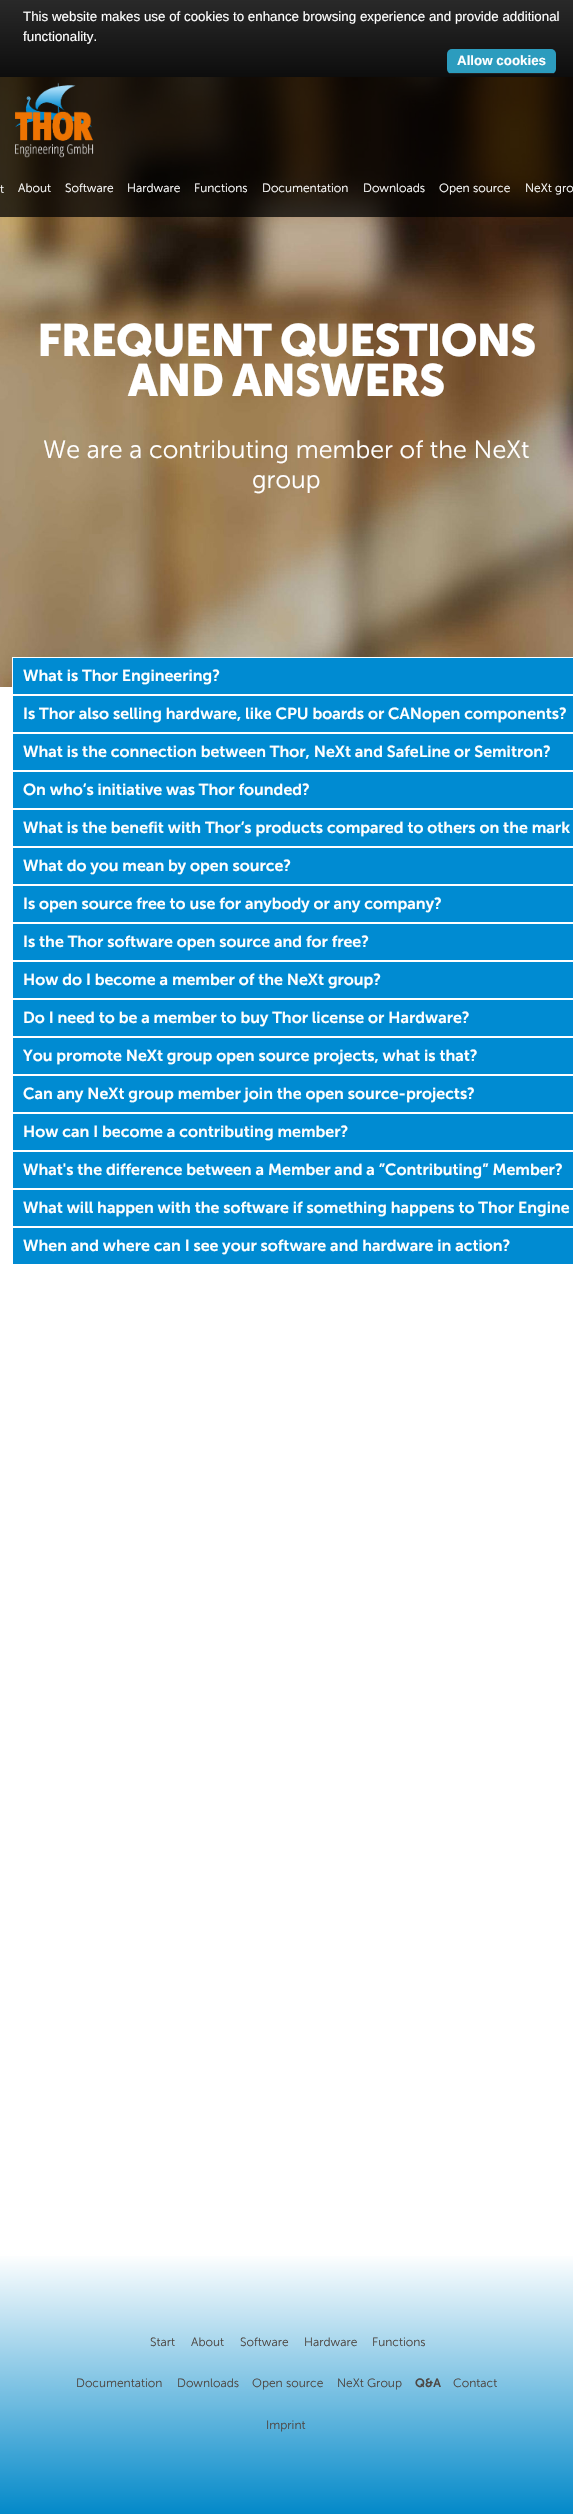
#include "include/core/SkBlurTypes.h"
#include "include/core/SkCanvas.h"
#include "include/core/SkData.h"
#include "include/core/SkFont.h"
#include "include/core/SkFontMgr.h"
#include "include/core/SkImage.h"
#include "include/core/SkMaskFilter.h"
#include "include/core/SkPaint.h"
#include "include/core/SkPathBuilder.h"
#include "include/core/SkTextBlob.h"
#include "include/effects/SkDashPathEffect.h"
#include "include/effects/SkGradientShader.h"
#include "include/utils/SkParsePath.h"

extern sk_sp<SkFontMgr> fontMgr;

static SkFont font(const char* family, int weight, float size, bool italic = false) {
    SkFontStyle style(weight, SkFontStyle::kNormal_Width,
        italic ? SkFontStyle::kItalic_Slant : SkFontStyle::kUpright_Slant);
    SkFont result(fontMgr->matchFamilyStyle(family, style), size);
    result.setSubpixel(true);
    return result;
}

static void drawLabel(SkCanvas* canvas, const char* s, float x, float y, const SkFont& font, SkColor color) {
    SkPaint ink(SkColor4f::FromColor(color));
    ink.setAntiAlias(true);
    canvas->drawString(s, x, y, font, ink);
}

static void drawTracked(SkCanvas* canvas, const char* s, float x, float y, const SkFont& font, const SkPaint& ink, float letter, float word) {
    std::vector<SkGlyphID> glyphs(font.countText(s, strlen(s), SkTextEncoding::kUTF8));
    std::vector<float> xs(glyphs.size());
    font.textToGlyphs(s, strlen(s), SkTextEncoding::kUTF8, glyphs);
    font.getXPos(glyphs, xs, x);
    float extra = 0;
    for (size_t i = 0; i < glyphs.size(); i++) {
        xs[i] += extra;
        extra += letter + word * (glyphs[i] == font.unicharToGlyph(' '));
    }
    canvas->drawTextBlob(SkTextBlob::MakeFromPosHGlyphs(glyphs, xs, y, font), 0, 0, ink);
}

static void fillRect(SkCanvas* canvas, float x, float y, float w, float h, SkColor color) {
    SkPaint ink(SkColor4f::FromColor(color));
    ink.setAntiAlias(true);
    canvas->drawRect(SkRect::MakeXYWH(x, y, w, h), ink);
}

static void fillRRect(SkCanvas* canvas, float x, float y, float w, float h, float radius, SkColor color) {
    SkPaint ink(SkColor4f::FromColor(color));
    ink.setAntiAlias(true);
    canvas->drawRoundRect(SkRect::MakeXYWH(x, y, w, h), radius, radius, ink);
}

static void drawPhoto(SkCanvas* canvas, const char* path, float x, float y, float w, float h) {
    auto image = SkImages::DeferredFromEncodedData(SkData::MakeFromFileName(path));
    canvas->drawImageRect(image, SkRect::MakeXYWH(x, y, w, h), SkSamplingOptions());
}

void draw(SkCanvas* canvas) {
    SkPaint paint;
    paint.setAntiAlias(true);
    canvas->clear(0xFFFFFFFF);
    {
        const SkColor colors[] = {0xFF292929, 0xFF0D0D0D};
        const float stops[] = {0, 1};
        const SkPoint ends[] = {{290, 0}, {290, 77}};
        paint.setShader(SkGradientShader::MakeLinear(ends, colors, stops, 2, SkTileMode::kClamp));
        paint.setAlpha(255);
    }
    canvas->drawRect(SkRect::MakeXYWH(0, 0, 573, 77), paint);
    SkFont font1 = font("Liberation Sans", 400, 13.35f);
    drawLabel(canvas, "This website makes use of cookies to enhance browsing experience and provide additional", 23, 21, font1, 0xFFFFFFFF);
    drawLabel(canvas, "functionality.", 23, 41, font1, 0xFFFFFFFF);
    fillRRect(canvas, 447, 49, 109, 25, 5, 0xFF2C9CBE);
    fillRect(canvas, 450, 73, 104, 1, 0xFF222222);
    SkFont font2 = font("Liberation Sans", 700, 13.35f);
    drawLabel(canvas, "Allow cookies", 457, 65, font2, 0xFFFFFFFF);
    drawPhoto(canvas, "assets/img2.png", 0, 77, 573, 610);
    fillRect(canvas, 0, 77, 573, 140, 0xBF000000);
    drawPhoto(canvas, "assets/img1.png", 15, 82, 79, 76);
    SkFont font3 = font("Museo Sans", 300, 12);
    drawLabel(canvas, "t", 0, 193, font3, 0xFFFFFFFF);
    drawLabel(canvas, "About", 18, 192, font3, 0xFFFFFFFF);
    drawLabel(canvas, "Software", 65, 192, font3, 0xFFFFFFFF);
    drawLabel(canvas, "Hardware", 127, 192, font3, 0xFFFFFFFF);
    drawLabel(canvas, "Functions", 194, 192, font3, 0xFFFFFFFF);
    drawLabel(canvas, "Documentation", 262, 192, font3, 0xFFFFFFFF);
    drawLabel(canvas, "Downloads", 363, 192, font3, 0xFFFFFFFF);
    drawLabel(canvas, "Open source", 439, 192, font3, 0xFFFFFFFF);
    drawLabel(canvas, "NeXt gro", 525, 192, font3, 0xFFFFFFFF);
    SkFont font4 = font("Museo Sans", 700, 45);
    paint.setShader(nullptr);
    paint.setColor(0xFFFFFFFF);
    drawTracked(canvas, "FREQUENT QUESTIONS", 37, 356, font4, paint, -1, 0);
    drawTracked(canvas, "AND ANSWERS", 128, 396, font4, paint, -1, 0);
    SkFont font5 = font("Museo Sans", 300, 25);
    drawLabel(canvas, "We are a contributing member of the NeXt", 43, 458, font5, 0xFFFFFFFF);
    drawLabel(canvas, "group", 252, 488, font5, 0xFFFFFFFF);
    paint.setColor(0xFF008BD2);
    canvas->drawRect(SkRect::MakeXYWH(12.5f, 657.5f, 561, 37), paint);
    paint.setStroke(true);
    paint.setStrokeWidth(1);
    paint.setColor(0xFFFFFFFF);
    canvas->drawRect(SkRect::MakeXYWH(12.5f, 657.5f, 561, 37), paint);
    SkFont font6 = font("Museo Sans", 600, 16);
    drawLabel(canvas, "What is Thor Engineering?", 23, 681, font6, 0xFFFFFFFF);
    fillRect(canvas, 13, 696, 560, 36, 0xFF008BD2);
    drawLabel(canvas, "Is Thor also selling hardware, like CPU boards or CANopen components?", 23, 719, font6, 0xFFFFFFFF);
    fillRect(canvas, 13, 734, 560, 36, 0xFF008BD2);
    drawLabel(canvas, "What is the connection between Thor, NeXt and SafeLine or Semitron?", 23, 757, font6, 0xFFFFFFFF);
    fillRect(canvas, 13, 772, 560, 36, 0xFF008BD2);
    drawLabel(canvas, "On who’s initiative was Thor founded?", 23, 795, font6, 0xFFFFFFFF);
    fillRect(canvas, 13, 810, 560, 36, 0xFF008BD2);
    drawLabel(canvas, "What is the benefit with Thor’s products compared to others on the mark", 23, 833, font6, 0xFFFFFFFF);
    fillRect(canvas, 13, 848, 560, 36, 0xFF008BD2);
    drawLabel(canvas, "What do you mean by open source?", 23, 871, font6, 0xFFFFFFFF);
    fillRect(canvas, 13, 886, 560, 36, 0xFF008BD2);
    drawLabel(canvas, "Is open source free to use for anybody or any company?", 23, 909, font6, 0xFFFFFFFF);
    fillRect(canvas, 13, 924, 560, 36, 0xFF008BD2);
    drawLabel(canvas, "Is the Thor software open source and for free?", 23, 947, font6, 0xFFFFFFFF);
    fillRect(canvas, 13, 962, 560, 36, 0xFF008BD2);
    drawLabel(canvas, "How do I become a member of the NeXt group?", 23, 985, font6, 0xFFFFFFFF);
    fillRect(canvas, 13, 1000, 560, 36, 0xFF008BD2);
    drawLabel(canvas, "Do I need to be a member to buy Thor license or Hardware?", 23, 1023, font6, 0xFFFFFFFF);
    fillRect(canvas, 13, 1038, 560, 36, 0xFF008BD2);
    drawLabel(canvas, "You promote NeXt group open source projects, what is that?", 23, 1061, font6, 0xFFFFFFFF);
    fillRect(canvas, 13, 1076, 560, 36, 0xFF008BD2);
    drawLabel(canvas, "Can any NeXt group member join the open source-projects?", 23, 1099, font6, 0xFFFFFFFF);
    fillRect(canvas, 13, 1114, 560, 36, 0xFF008BD2);
    drawLabel(canvas, "How can I become a contributing member?", 23, 1137, font6, 0xFFFFFFFF);
    fillRect(canvas, 13, 1152, 560, 36, 0xFF008BD2);
    drawLabel(canvas, "What's the difference between a Member and a ”Contributing” Member?", 23, 1175, font6, 0xFFFFFFFF);
    fillRect(canvas, 13, 1190, 560, 36, 0xFF008BD2);
    drawLabel(canvas, "What will happen with the software if something happens to Thor Engine", 23, 1213, font6, 0xFFFFFFFF);
    fillRect(canvas, 13, 1228, 560, 36, 0xFF008BD2);
    drawLabel(canvas, "When and where can I see your software and hardware in action?", 23, 1251, font6, 0xFFFFFFFF);
    paint.setStroke(false);
    {
        const SkColor colors[] = {0xFFFFFFFF, 0xFF0389C9};
        const float stops[] = {0, 1};
        const SkPoint ends[] = {{287, 2253}, {287, 2514}};
        paint.setShader(SkGradientShader::MakeLinear(ends, colors, stops, 2, SkTileMode::kClamp));
        paint.setAlpha(255);
    }
    canvas->drawRect(SkRect::MakeXYWH(0, 2256, 573, 258), paint);
    drawLabel(canvas, "Start", 150, 2346, font3, 0xFF4D4743);
    drawLabel(canvas, "About", 191, 2346, font3, 0xFF4D4743);
    drawLabel(canvas, "Software", 240, 2346, font3, 0xFF4D4743);
    drawLabel(canvas, "Hardware", 304, 2346, font3, 0xFF4D4743);
    drawLabel(canvas, "Functions", 372, 2346, font3, 0xFF4D4743);
    drawLabel(canvas, "Documentation", 76, 2387, font3, 0xFF4D4743);
    drawLabel(canvas, "Downloads", 177, 2387, font3, 0xFF4D4743);
    drawLabel(canvas, "Open source", 252, 2387, font3, 0xFF4D4743);
    drawLabel(canvas, "NeXt Group", 337, 2387, font3, 0xFF4D4743);
    SkFont font7 = font("Museo Sans", 600, 12);
    drawLabel(canvas, "Q&A", 415, 2387, font7, 0xFF4D4743);
    drawLabel(canvas, "Contact", 453, 2387, font3, 0xFF4D4743);
    drawLabel(canvas, "Imprint", 266, 2429, font3, 0xFF4D4743);
}
